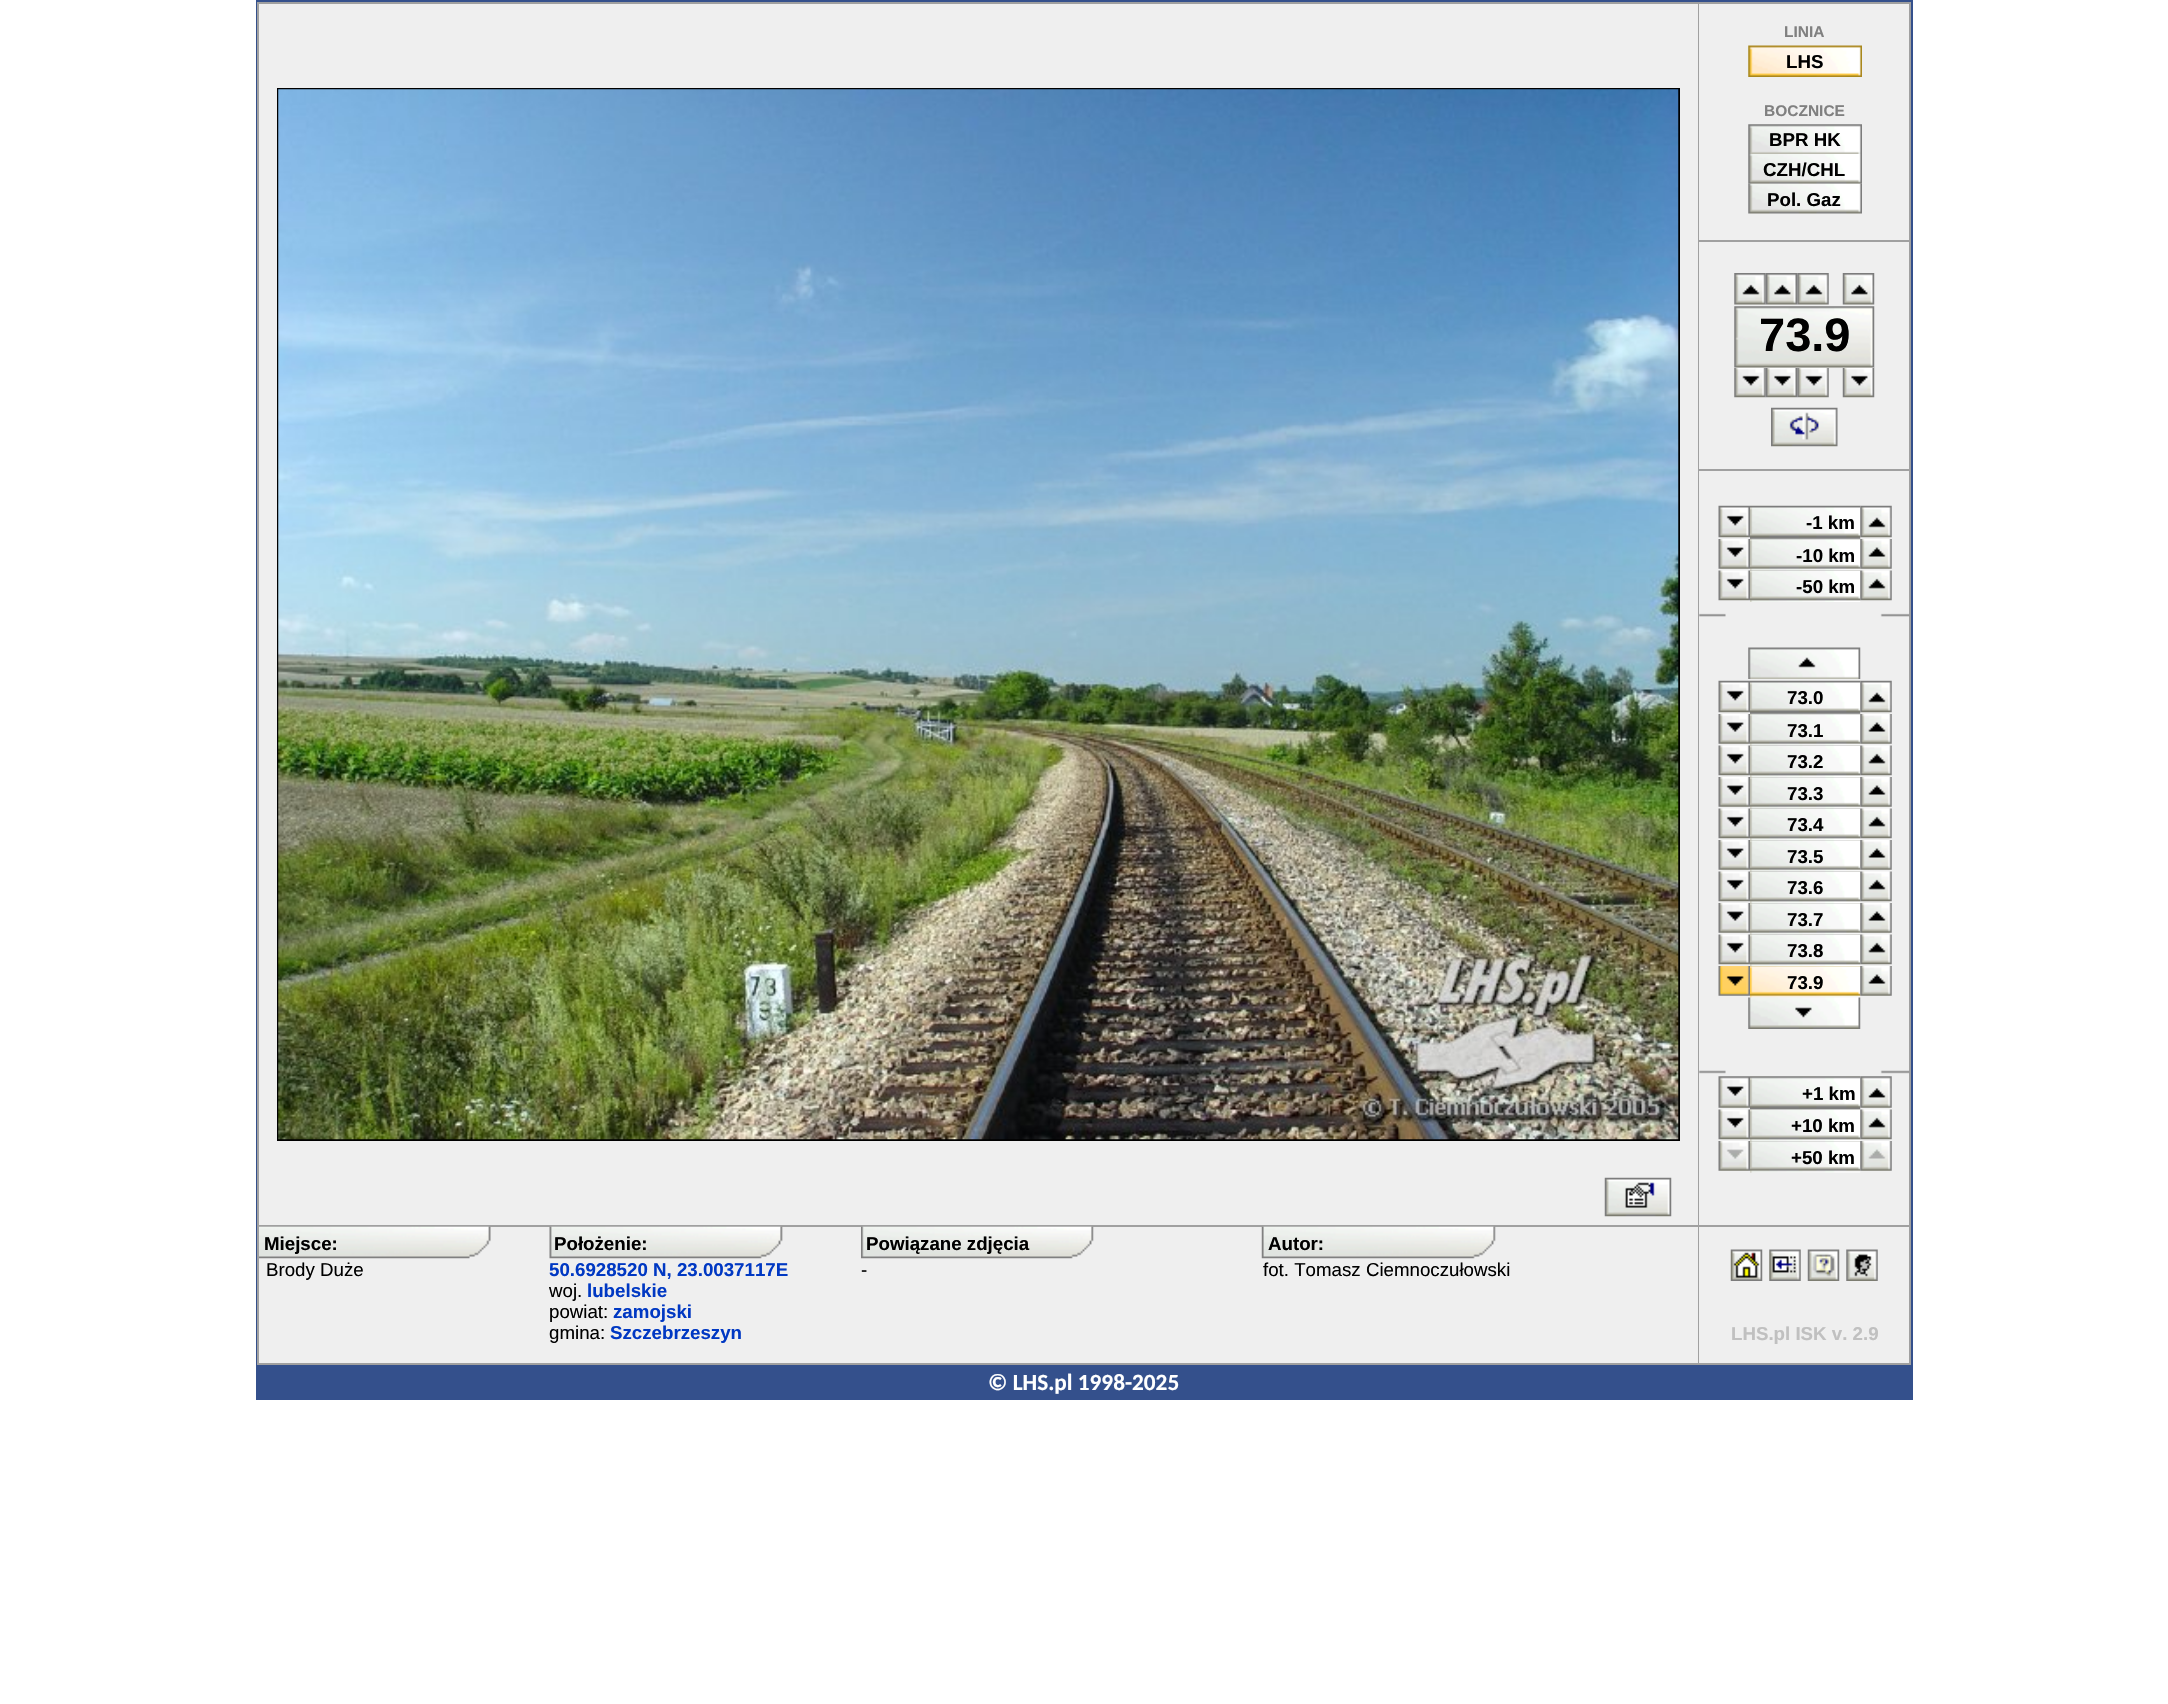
#include "include/core/SkBlurTypes.h"
#include "include/core/SkCanvas.h"
#include "include/core/SkData.h"
#include "include/core/SkFont.h"
#include "include/core/SkFontMgr.h"
#include "include/core/SkImage.h"
#include "include/core/SkMaskFilter.h"
#include "include/core/SkPaint.h"
#include "include/core/SkPathBuilder.h"
#include "include/core/SkTextBlob.h"
#include "include/effects/SkDashPathEffect.h"
#include "include/effects/SkGradientShader.h"
#include "include/utils/SkParsePath.h"

extern sk_sp<SkFontMgr> fontMgr;

static SkFont font(const char* family, int weight, float size, bool italic = false) {
    SkFontStyle style(weight, SkFontStyle::kNormal_Width,
        italic ? SkFontStyle::kItalic_Slant : SkFontStyle::kUpright_Slant);
    SkFont result(fontMgr->matchFamilyStyle(family, style), size);
    result.setSubpixel(true);
    return result;
}

static void drawLabel(SkCanvas* canvas, const char* s, float x, float y, const SkFont& font, SkColor color) {
    SkPaint ink(SkColor4f::FromColor(color));
    ink.setAntiAlias(true);
    canvas->drawString(s, x, y, font, ink);
}

static void fillRect(SkCanvas* canvas, float x, float y, float w, float h, SkColor color) {
    SkPaint ink(SkColor4f::FromColor(color));
    ink.setAntiAlias(true);
    canvas->drawRect(SkRect::MakeXYWH(x, y, w, h), ink);
}

static void drawPhoto(SkCanvas* canvas, const char* path, float x, float y, float w, float h) {
    auto image = SkImages::DeferredFromEncodedData(SkData::MakeFromFileName(path));
    canvas->drawImageRect(image, SkRect::MakeXYWH(x, y, w, h), SkSamplingOptions());
}

void draw(SkCanvas* canvas) {
    SkPaint paint;
    paint.setAntiAlias(true);
    canvas->clear(0xFFFFFFFF);
    fillRect(canvas, 256, 0, 1657, 1400, 0xFF34508C);
    fillRect(canvas, 257, 2, 1654, 1363, 0xFFA0A0A0);
    fillRect(canvas, 259, 4, 1439, 1221, 0xFFEFEFEF);
    paint.setStroke(true);
    paint.setStrokeWidth(2);
    paint.setColor(0xFF000000);
    canvas->drawRect(SkRect::MakeXYWH(278, 89, 1401, 1051), paint);
    drawPhoto(canvas, "assets/img1.png", 278, 89, 1401, 1051);
    fillRect(canvas, 1699, 4, 210, 236, 0xFFEFEFEF);
    SkFont font1 = font("Liberation Sans", 700, 15.5f);
    drawLabel(canvas, "LINIA", 1784, 37, font1, 0xFF808080);
    drawPhoto(canvas, "assets/img2.png", 1748, 45, 114, 32);
    SkFont font2 = font("Liberation Sans", 700, 18.7f);
    drawLabel(canvas, "LHS", 1786, 68, font2, 0xFF000000);
    drawLabel(canvas, "BOCZNICE", 1764, 116, font1, 0xFF808080);
    drawPhoto(canvas, "assets/img3.png", 1748, 124, 114, 30);
    drawLabel(canvas, "BPR HK", 1769, 146, font2, 0xFF000000);
    drawPhoto(canvas, "assets/img4.png", 1748, 154, 114, 30);
    drawLabel(canvas, "CZH/CHL", 1763, 176, font2, 0xFF000000);
    drawPhoto(canvas, "assets/img5.png", 1748, 183, 114, 31);
    drawLabel(canvas, "Pol. Gaz", 1767, 206, font2, 0xFF000000);
    fillRect(canvas, 1699, 242, 210, 227, 0xFFEFEFEF);
    drawPhoto(canvas, "assets/img6.png", 1734, 273, 32, 32);
    drawPhoto(canvas, "assets/img7.png", 1765, 273, 33, 32);
    drawPhoto(canvas, "assets/img8.png", 1797, 273, 32, 32);
    drawPhoto(canvas, "assets/img9.png", 1842, 273, 33, 32);
    drawPhoto(canvas, "assets/img14.png", 1842, 367, 33, 31);
    fillRect(canvas, 1842, 367, 32, 1, 0xFFEFEFEF);
    drawPhoto(canvas, "assets/img10.png", 1734, 306, 141, 62);
    SkFont font3 = font("Liberation Sans", 700, 47);
    drawLabel(canvas, "73.9", 1759, 351, font3, 0xFF000000);
    drawPhoto(canvas, "assets/img11.png", 1734, 368, 32, 30);
    drawPhoto(canvas, "assets/img12.png", 1765, 368, 33, 30);
    drawPhoto(canvas, "assets/img13.png", 1797, 368, 32, 30);
    drawPhoto(canvas, "assets/img15.png", 1771, 407, 67, 40);
    fillRect(canvas, 1699, 471, 210, 754, 0xFFEFEFEF);
    drawPhoto(canvas, "assets/img16.png", 1718, 505, 32, 33);
    drawPhoto(canvas, "assets/img17.png", 1750, 505, 111, 34);
    drawLabel(canvas, "-1 km", 1806, 529, font2, 0xFF000000);
    drawPhoto(canvas, "assets/img18.png", 1860, 505, 32, 33);
    drawPhoto(canvas, "assets/img19.png", 1718, 539, 32, 30);
    drawPhoto(canvas, "assets/img20.png", 1750, 539, 111, 32);
    drawLabel(canvas, "-10 km", 1796, 562, font2, 0xFF000000);
    drawPhoto(canvas, "assets/img21.png", 1860, 539, 32, 30);
    drawPhoto(canvas, "assets/img22.png", 1718, 570, 32, 31);
    drawPhoto(canvas, "assets/img23.png", 1750, 570, 111, 32);
    drawLabel(canvas, "-50 km", 1796, 593, font2, 0xFF000000);
    drawPhoto(canvas, "assets/img24.png", 1860, 570, 32, 31);
    drawPhoto(canvas, "assets/img25.png", 1699, 613, 211, 4);
    drawPhoto(canvas, "assets/img26.png", 1748, 647, 113, 32);
    drawPhoto(canvas, "assets/img16.png", 1718, 680, 32, 33);
    drawPhoto(canvas, "assets/img27.png", 1750, 680, 111, 34);
    drawLabel(canvas, "73.0", 1787, 704, font2, 0xFF000000);
    drawPhoto(canvas, "assets/img18.png", 1860, 680, 32, 33);
    drawPhoto(canvas, "assets/img19.png", 1718, 714, 32, 30);
    drawPhoto(canvas, "assets/img28.png", 1750, 714, 111, 32);
    drawLabel(canvas, "73.1", 1787, 737, font2, 0xFF000000);
    drawPhoto(canvas, "assets/img21.png", 1860, 714, 32, 30);
    drawPhoto(canvas, "assets/img22.png", 1718, 745, 32, 31);
    drawPhoto(canvas, "assets/img29.png", 1750, 745, 111, 32);
    drawLabel(canvas, "73.2", 1787, 768, font2, 0xFF000000);
    drawPhoto(canvas, "assets/img24.png", 1860, 745, 32, 31);
    drawPhoto(canvas, "assets/img19.png", 1718, 777, 32, 30);
    drawPhoto(canvas, "assets/img20.png", 1750, 777, 111, 32);
    drawLabel(canvas, "73.3", 1787, 800, font2, 0xFF000000);
    drawPhoto(canvas, "assets/img21.png", 1860, 777, 32, 30);
    drawPhoto(canvas, "assets/img22.png", 1718, 808, 32, 31);
    drawPhoto(canvas, "assets/img30.png", 1750, 808, 111, 32);
    drawLabel(canvas, "73.4", 1787, 831, font2, 0xFF000000);
    drawPhoto(canvas, "assets/img24.png", 1860, 808, 32, 31);
    drawPhoto(canvas, "assets/img19.png", 1718, 840, 32, 30);
    drawPhoto(canvas, "assets/img31.png", 1750, 840, 111, 32);
    drawLabel(canvas, "73.5", 1787, 863, font2, 0xFF000000);
    drawPhoto(canvas, "assets/img21.png", 1860, 840, 32, 30);
    drawPhoto(canvas, "assets/img22.png", 1718, 871, 32, 31);
    drawPhoto(canvas, "assets/img32.png", 1750, 871, 111, 32);
    drawLabel(canvas, "73.6", 1787, 894, font2, 0xFF000000);
    drawPhoto(canvas, "assets/img24.png", 1860, 871, 32, 31);
    drawPhoto(canvas, "assets/img19.png", 1718, 903, 32, 30);
    drawPhoto(canvas, "assets/img33.png", 1750, 903, 111, 32);
    drawLabel(canvas, "73.7", 1787, 926, font2, 0xFF000000);
    drawPhoto(canvas, "assets/img21.png", 1860, 903, 32, 30);
    drawPhoto(canvas, "assets/img22.png", 1718, 934, 32, 31);
    drawPhoto(canvas, "assets/img34.png", 1750, 934, 111, 32);
    drawLabel(canvas, "73.8", 1787, 957, font2, 0xFF000000);
    drawPhoto(canvas, "assets/img24.png", 1860, 934, 32, 31);
    drawPhoto(canvas, "assets/img35.png", 1718, 966, 32, 30);
    drawPhoto(canvas, "assets/img36.png", 1750, 966, 111, 32);
    drawLabel(canvas, "73.9", 1787, 989, font2, 0xFF000000);
    drawPhoto(canvas, "assets/img37.png", 1860, 966, 32, 30);
    drawPhoto(canvas, "assets/img38.png", 1748, 997, 113, 32);
    drawPhoto(canvas, "assets/img39.png", 1699, 1070, 211, 4);
    drawPhoto(canvas, "assets/img40.png", 1718, 1076, 32, 32);
    drawPhoto(canvas, "assets/img41.png", 1750, 1076, 111, 34);
    drawLabel(canvas, "+1 km", 1802, 1100, font2, 0xFF000000);
    drawPhoto(canvas, "assets/img42.png", 1860, 1076, 32, 32);
    drawPhoto(canvas, "assets/img22.png", 1718, 1109, 32, 31);
    drawPhoto(canvas, "assets/img43.png", 1750, 1109, 111, 32);
    drawLabel(canvas, "+10 km", 1791, 1132, font2, 0xFF000000);
    drawPhoto(canvas, "assets/img44.png", 1860, 1109, 32, 31);
    drawPhoto(canvas, "assets/img45.png", 1718, 1141, 32, 30);
    drawPhoto(canvas, "assets/img46.png", 1750, 1141, 111, 32);
    drawLabel(canvas, "+50 km", 1791, 1164, font2, 0xFF000000);
    drawPhoto(canvas, "assets/img47.png", 1860, 1141, 32, 30);
    fillRect(canvas, 259, 1227, 1439, 136, 0xFFEFEFEF);
    drawPhoto(canvas, "assets/img48.png", 259, 1226, 232, 33);
    drawLabel(canvas, "Miejsce:", 264, 1250, font2, 0xFF000000);
    drawPhoto(canvas, "assets/img49.png", 549, 1226, 234, 33);
    drawLabel(canvas, "Położenie:", 554, 1250, font2, 0xFF000000);
    drawPhoto(canvas, "assets/img50.png", 861, 1226, 233, 33);
    drawLabel(canvas, "Powiązane zdjęcia", 866, 1250, font2, 0xFF000000);
    drawPhoto(canvas, "assets/img51.png", 1261, 1226, 235, 33);
    drawLabel(canvas, "Autor:", 1268, 1250, font2, 0xFF000000);
    drawPhoto(canvas, "assets/img52.png", 1604, 1177, 68, 40);
    SkFont font4 = font("Liberation Sans", 400, 18.7f);
    drawLabel(canvas, "Brody Duże", 266, 1276, font4, 0xFF000000);
    drawLabel(canvas, "50.6928520 N, 23.0037117E", 549, 1276, font2, 0xFF0038C3);
    drawLabel(canvas, "woj.", 549, 1297, font4, 0xFF000000);
    drawLabel(canvas, "lubelskie", 587, 1297, font2, 0xFF0038C3);
    drawLabel(canvas, "powiat:", 549, 1318, font4, 0xFF000000);
    drawLabel(canvas, "zamojski", 613, 1318, font2, 0xFF0038C3);
    drawLabel(canvas, "gmina:", 549, 1339, font4, 0xFF000000);
    drawLabel(canvas, "Szczebrzeszyn", 610, 1339, font2, 0xFF0038C3);
    drawLabel(canvas, "-", 861, 1276, font4, 0xFF000000);
    drawLabel(canvas, "fot. Tomasz Ciemnoczułowski", 1263, 1276, font4, 0xFF000000);
    fillRect(canvas, 1699, 1227, 210, 136, 0xFFEFEFEF);
    drawPhoto(canvas, "assets/img53.png", 1730, 1249, 33, 32);
    drawPhoto(canvas, "assets/img54.png", 1769, 1249, 32, 32);
    drawPhoto(canvas, "assets/img55.png", 1807, 1249, 33, 32);
    drawPhoto(canvas, "assets/img56.png", 1846, 1249, 32, 32);
    drawLabel(canvas, "LHS.pl ISK v. 2.9", 1731, 1340, font2, 0xFFC0C0C0);
    SkFont font5 = font("Carlito", 700, 23.25f);
    drawLabel(canvas, "© LHS.pl 1998-2025", 988, 1390, font5, 0xFFFFFFFF);
}
